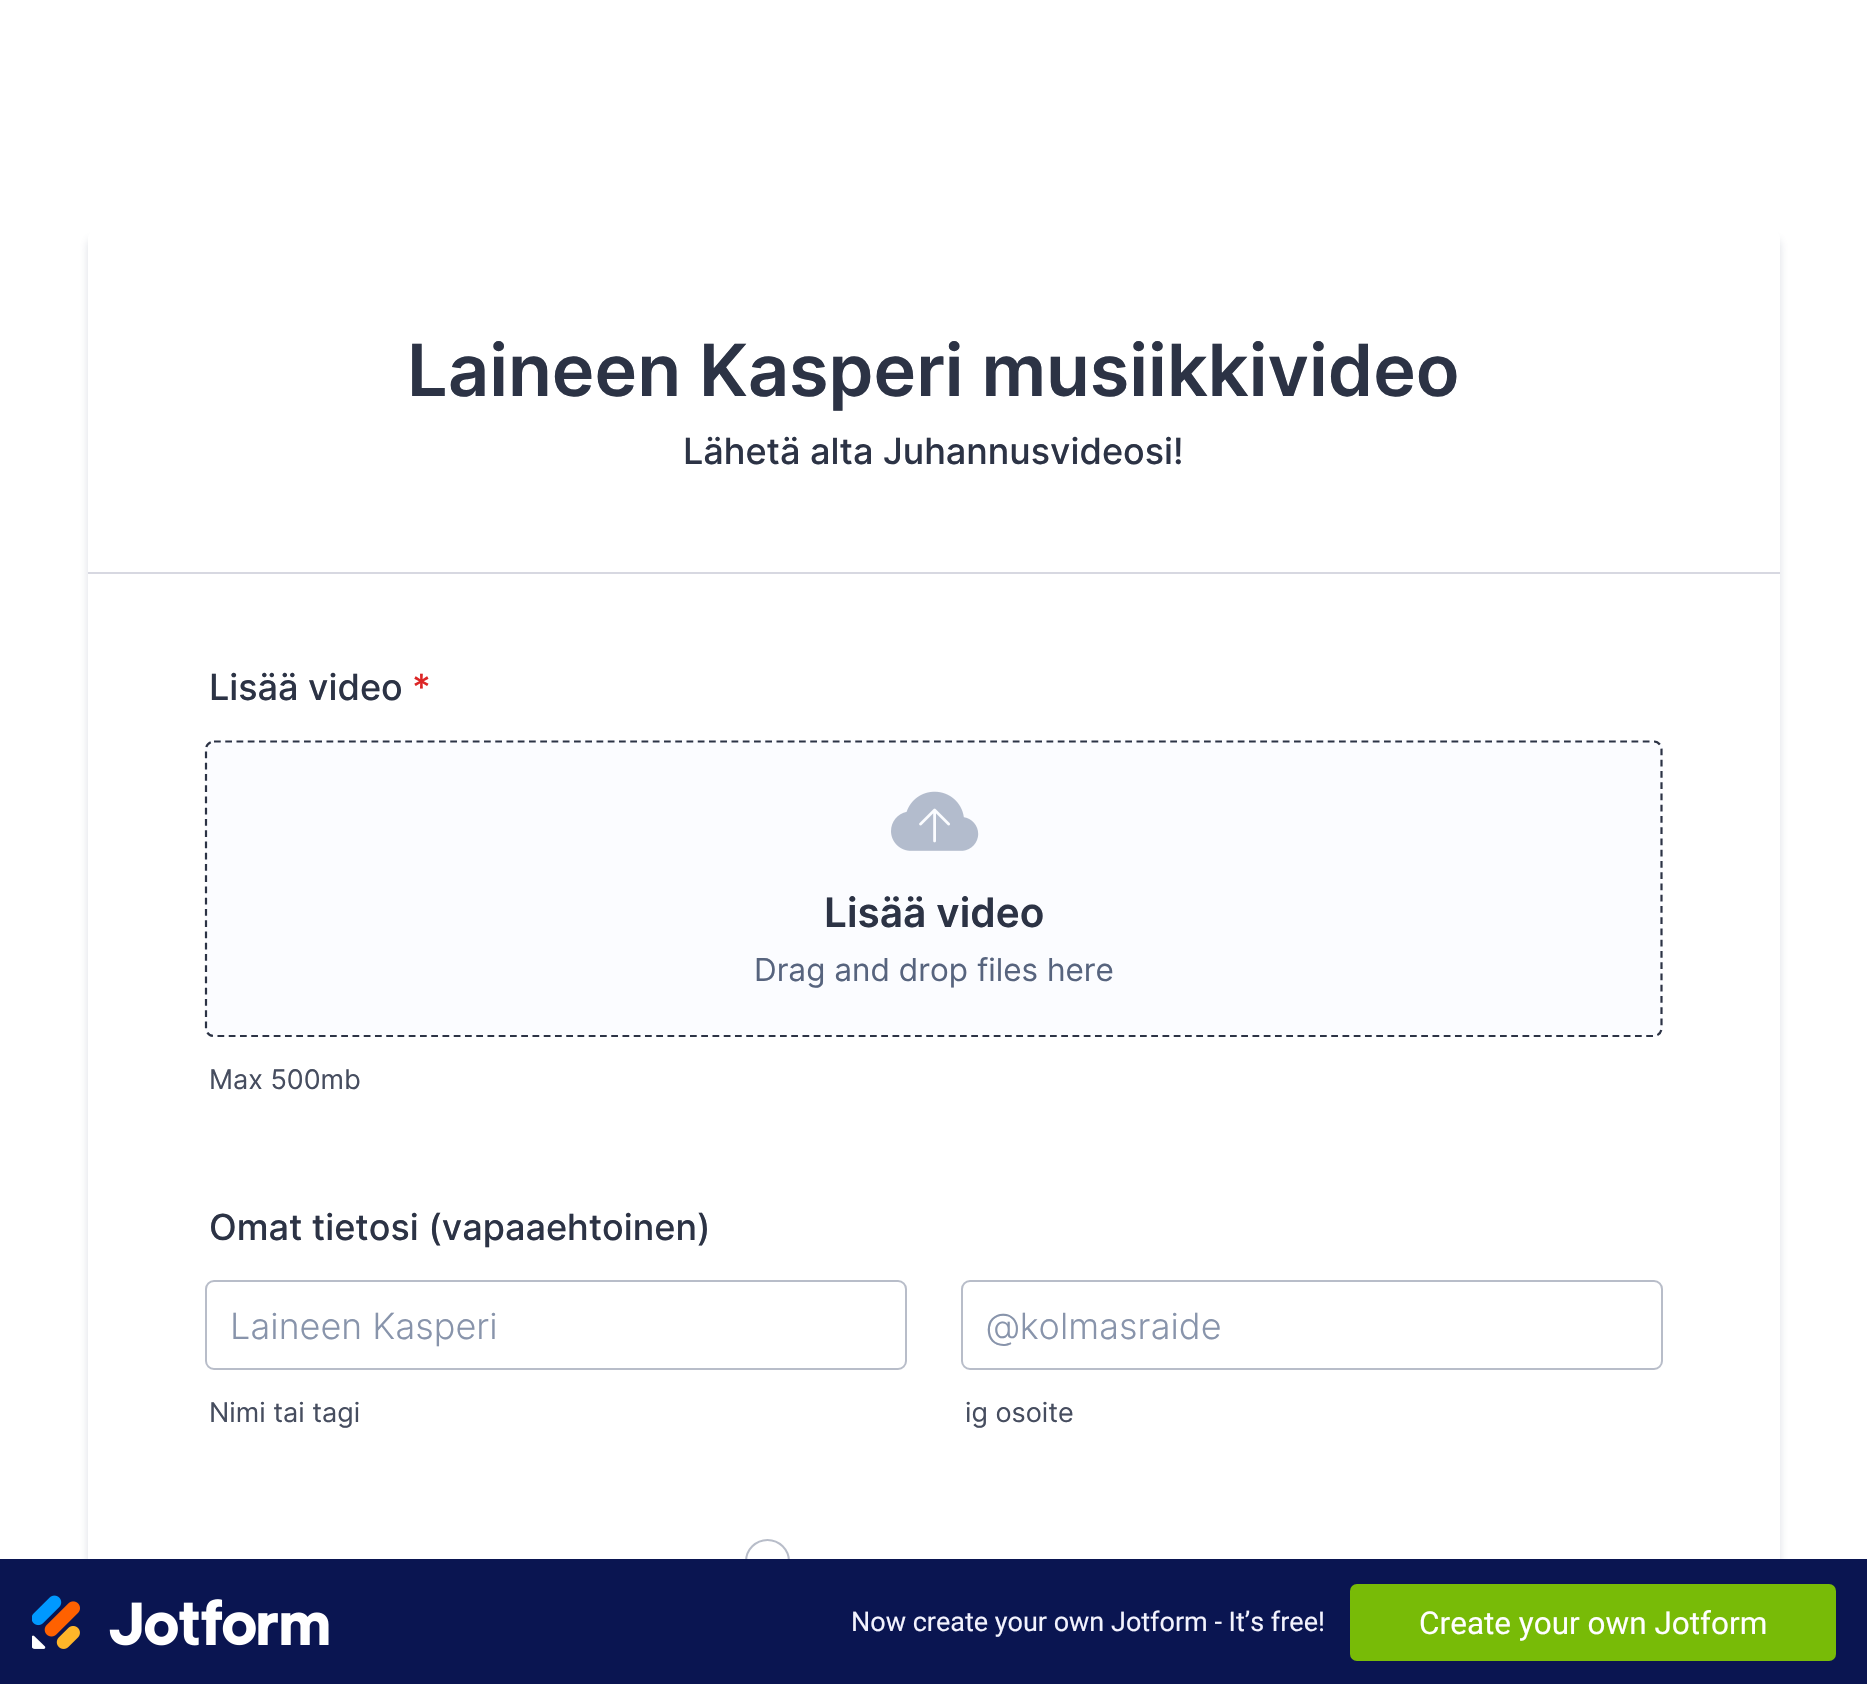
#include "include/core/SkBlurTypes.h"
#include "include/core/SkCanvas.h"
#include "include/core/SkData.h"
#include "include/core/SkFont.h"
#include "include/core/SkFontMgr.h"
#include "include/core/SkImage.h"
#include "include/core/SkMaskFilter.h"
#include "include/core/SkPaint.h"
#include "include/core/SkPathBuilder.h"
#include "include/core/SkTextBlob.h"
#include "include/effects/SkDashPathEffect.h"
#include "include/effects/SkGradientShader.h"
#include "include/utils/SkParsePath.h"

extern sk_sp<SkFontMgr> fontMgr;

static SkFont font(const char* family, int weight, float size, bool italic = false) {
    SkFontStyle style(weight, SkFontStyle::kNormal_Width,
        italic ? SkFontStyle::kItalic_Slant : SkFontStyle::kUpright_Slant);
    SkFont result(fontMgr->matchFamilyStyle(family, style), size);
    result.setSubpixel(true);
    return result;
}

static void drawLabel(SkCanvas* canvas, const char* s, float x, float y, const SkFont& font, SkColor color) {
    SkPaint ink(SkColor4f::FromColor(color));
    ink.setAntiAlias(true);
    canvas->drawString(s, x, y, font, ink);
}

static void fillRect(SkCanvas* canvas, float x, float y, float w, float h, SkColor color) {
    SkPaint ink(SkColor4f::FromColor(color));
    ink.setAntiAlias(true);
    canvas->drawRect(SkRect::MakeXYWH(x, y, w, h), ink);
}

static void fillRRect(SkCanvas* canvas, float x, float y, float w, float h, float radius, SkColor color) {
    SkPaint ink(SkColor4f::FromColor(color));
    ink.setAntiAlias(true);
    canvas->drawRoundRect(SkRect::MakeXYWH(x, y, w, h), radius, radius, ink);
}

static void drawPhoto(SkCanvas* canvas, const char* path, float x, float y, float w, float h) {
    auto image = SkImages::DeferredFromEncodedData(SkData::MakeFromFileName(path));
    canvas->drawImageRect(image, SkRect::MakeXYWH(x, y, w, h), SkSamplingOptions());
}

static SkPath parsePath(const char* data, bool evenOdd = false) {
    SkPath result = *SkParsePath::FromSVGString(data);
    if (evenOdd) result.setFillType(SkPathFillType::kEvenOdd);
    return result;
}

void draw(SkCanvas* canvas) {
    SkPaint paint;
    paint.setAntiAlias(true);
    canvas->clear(0xFFFFFFFF);
    paint.setColor(0x3657647E);
    paint.setMaskFilter(SkMaskFilter::MakeBlur(kNormal_SkBlurStyle, 4.5f));
    canvas->drawRoundRect(SkRect::MakeXYWH(88, 239, 1692, 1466), 7, 7, paint);
    paint.setMaskFilter(nullptr);
    fillRRect(canvas, 88, 230, 1692, 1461, 7, 0xFFFFFFFF);
    fillRect(canvas, 88, 572, 1692, 2, 0xFFD7D8E1);
    SkFont font1 = font("Inter", 600, 72);
    drawLabel(canvas, "Laineen Kasperi musiikkivideo", 407, 396, font1, 0xFF2C3345);
    SkFont font2 = font("Inter", 500, 36);
    drawLabel(canvas, "Lähetä alta Juhannusvideosi!", 683, 464, font2, 0xFF2C3345);
    drawLabel(canvas, "Lisää video", 209, 700, font2, 0xFF2C3345);
    drawLabel(canvas, "*", 412, 700, font2, 0xFFDC2626);
    fillRRect(canvas, 205, 740, 1458, 297, 9, 0xFFFBFCFF);
    paint.setStroke(true);
    paint.setStrokeWidth(2.2f);
    paint.setColor(0xFF2C3345);
    paint.setPathEffect(SkDashPathEffect::Make({{6.75f, 4.5f}}, 0));
    canvas->drawPath(parsePath("M214 741.5H1654C1658 741.5 1661.5 745 1661.5 749V1028C1661.5 1032.5 1658 1036 1654 1036H214C209.5 1036 206 1032.5 206 1028V749C206 745 209.5 741.5 214 741.5Z"), paint);
    paint.setPathEffect(nullptr);
    drawPhoto(canvas, "assets/img1.png", 891, 791, 88, 60);
    SkFont font3 = font("Inter", 600, 40.5f);
    drawLabel(canvas, "Lisää video", 824, 927, font3, 0xFF2C3345);
    SkFont font4 = font("Inter", 400, 31.5f);
    drawLabel(canvas, "Drag and drop files here", 754, 981, font4, 0xFF57647E);
    SkFont font5 = font("Inter", 400, 27);
    drawLabel(canvas, "Max 500mb", 209, 1089, font5, 0xFF464D5F);
    drawLabel(canvas, "Omat tietosi (vapaaehtoinen)", 209, 1240, font2, 0xFF2C3345);
    paint.setStrokeWidth(2);
    paint.setColor(0xFFB8BDC9);
    canvas->drawRoundRect(SkRect::MakeXYWH(206, 1281, 700, 88), 8, 8, paint);
    SkFont font6 = font("Inter", 300, 36);
    drawLabel(canvas, "Laineen Kasperi", 230, 1339, font6, 0xFF8894AB);
    drawLabel(canvas, "Nimi tai tagi", 209, 1422, font5, 0xFF464D5F);
    canvas->drawRoundRect(SkRect::MakeXYWH(962, 1281, 700, 88), 8, 8, paint);
    drawLabel(canvas, "@kolmasraide", 986, 1339, font6, 0xFF8894AB);
    drawLabel(canvas, "ig osoite", 965, 1422, font5, 0xFF464D5F);
    canvas->drawCircle(767.5f, 1561.5f, 21.5f, paint);
    fillRect(canvas, 0, 1559, 1867, 125, 0xFF0A1551);
    drawPhoto(canvas, "assets/img2.png", 32, 1595, 297, 54);
    SkFont font7 = font("Roboto", 400, 27);
    drawLabel(canvas, "Now create your own Jotform - It’s free!", 851, 1631, font7, 0xFFF3F3FE);
    fillRRect(canvas, 1350, 1584, 486, 77, 7, 0xFF78BB07);
    SkFont font8 = font("Roboto", 400, 31.5f);
    drawLabel(canvas, "Create your own Jotform", 1419, 1634, font8, 0xFFFFFFFF);
}
